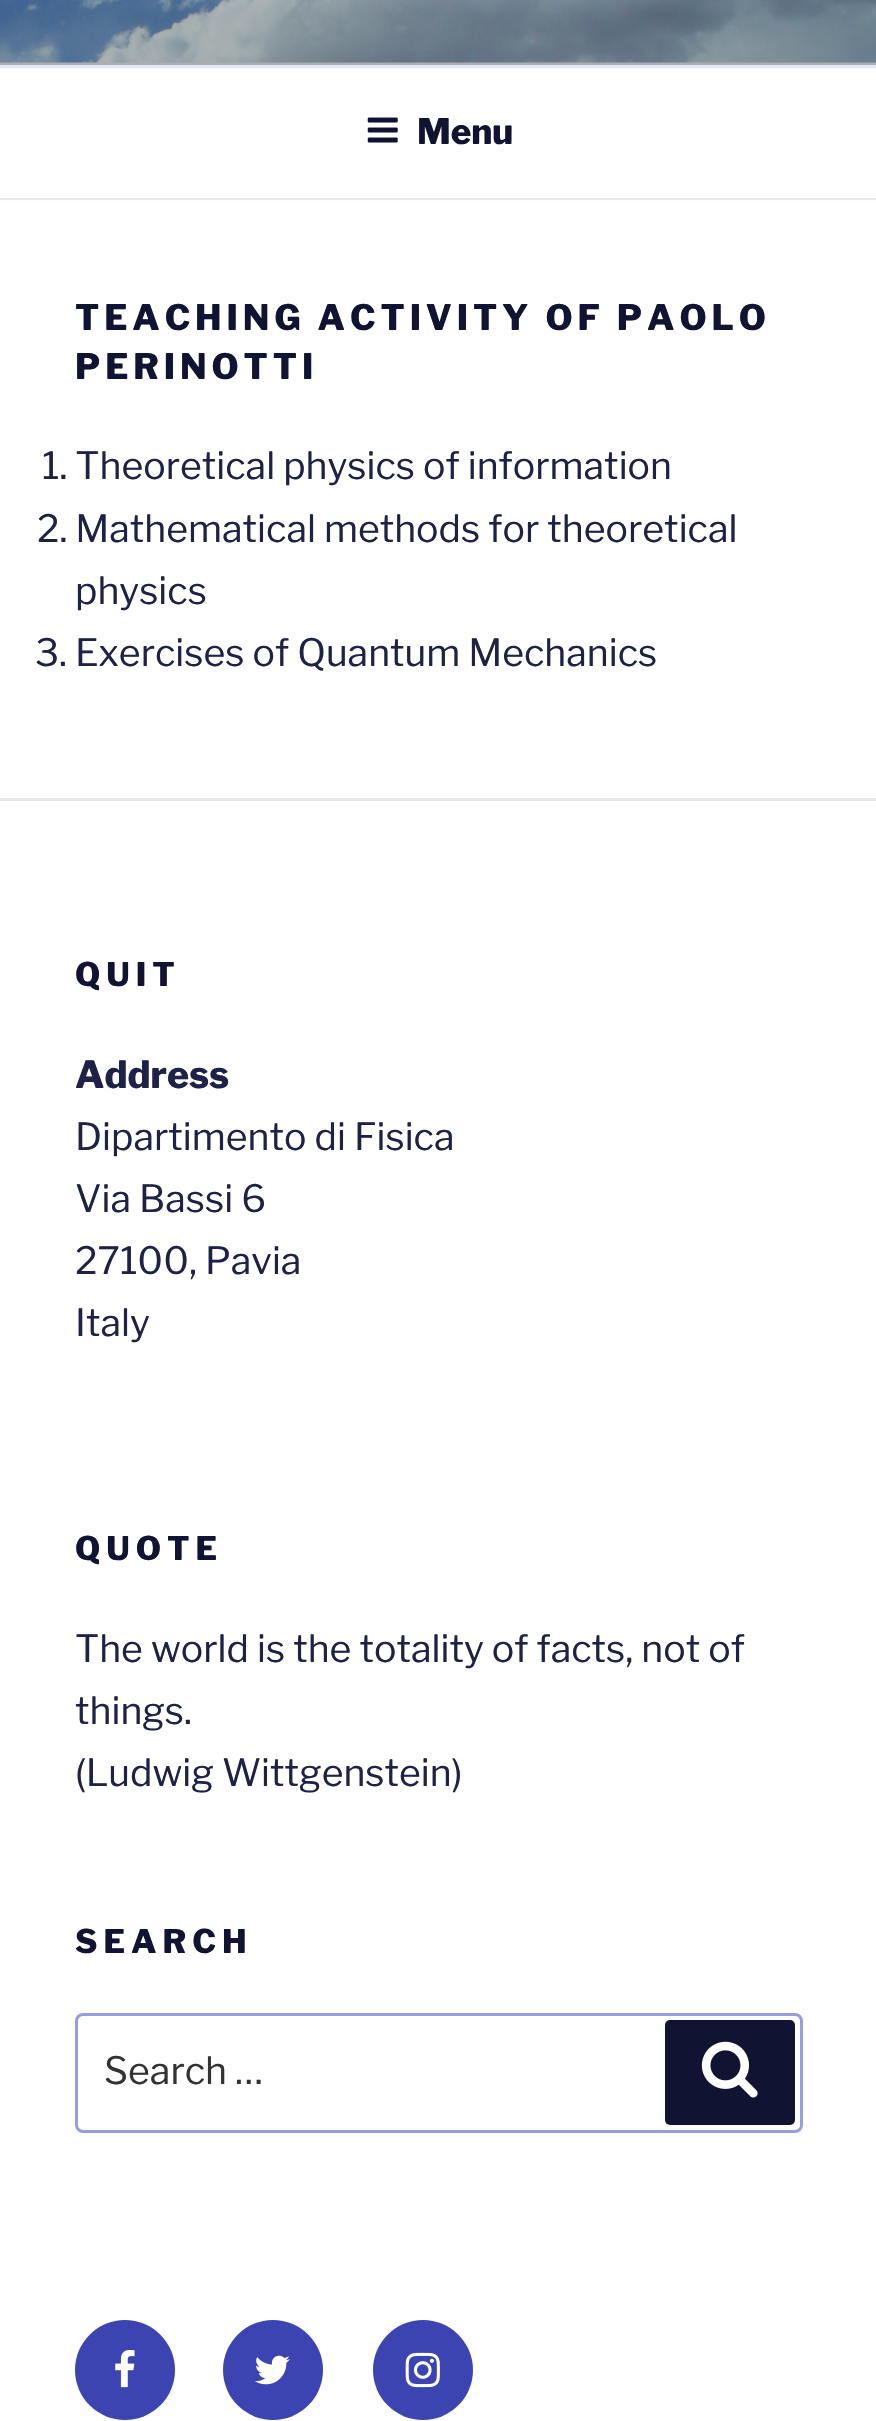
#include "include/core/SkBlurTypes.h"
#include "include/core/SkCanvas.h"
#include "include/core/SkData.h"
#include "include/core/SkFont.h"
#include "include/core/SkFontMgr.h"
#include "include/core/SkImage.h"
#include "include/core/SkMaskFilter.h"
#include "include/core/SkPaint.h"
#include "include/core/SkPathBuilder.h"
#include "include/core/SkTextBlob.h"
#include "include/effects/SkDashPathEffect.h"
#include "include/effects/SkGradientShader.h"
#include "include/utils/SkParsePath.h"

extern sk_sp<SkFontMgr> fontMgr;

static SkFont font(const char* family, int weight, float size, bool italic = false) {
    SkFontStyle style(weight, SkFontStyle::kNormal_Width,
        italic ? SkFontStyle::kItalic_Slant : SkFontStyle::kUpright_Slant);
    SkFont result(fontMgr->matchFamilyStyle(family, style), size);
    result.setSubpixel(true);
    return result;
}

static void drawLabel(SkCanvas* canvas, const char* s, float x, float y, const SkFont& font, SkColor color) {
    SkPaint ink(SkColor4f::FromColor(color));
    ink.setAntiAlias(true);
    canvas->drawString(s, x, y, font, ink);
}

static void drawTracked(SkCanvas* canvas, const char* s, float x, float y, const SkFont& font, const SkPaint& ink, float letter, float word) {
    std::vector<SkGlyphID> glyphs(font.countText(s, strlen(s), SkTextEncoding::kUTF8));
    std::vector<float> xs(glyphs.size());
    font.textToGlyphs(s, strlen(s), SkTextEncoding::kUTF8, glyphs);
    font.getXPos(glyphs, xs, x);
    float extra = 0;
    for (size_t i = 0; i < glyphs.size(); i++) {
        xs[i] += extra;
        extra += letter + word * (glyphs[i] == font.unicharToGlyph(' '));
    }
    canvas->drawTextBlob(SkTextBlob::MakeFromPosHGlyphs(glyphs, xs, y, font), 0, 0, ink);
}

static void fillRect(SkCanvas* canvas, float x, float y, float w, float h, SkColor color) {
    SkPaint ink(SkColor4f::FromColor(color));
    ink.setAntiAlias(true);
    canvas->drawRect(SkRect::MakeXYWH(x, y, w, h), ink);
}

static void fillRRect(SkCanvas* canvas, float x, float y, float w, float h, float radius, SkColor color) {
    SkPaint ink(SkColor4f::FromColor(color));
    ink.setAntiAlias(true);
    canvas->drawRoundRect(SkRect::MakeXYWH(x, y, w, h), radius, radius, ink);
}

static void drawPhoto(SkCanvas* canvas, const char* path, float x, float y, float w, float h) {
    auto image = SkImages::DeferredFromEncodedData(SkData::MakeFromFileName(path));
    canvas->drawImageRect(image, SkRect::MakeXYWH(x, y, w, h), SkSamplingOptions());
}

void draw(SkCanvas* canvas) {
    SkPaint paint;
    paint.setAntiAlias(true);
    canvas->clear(0xFFF7F8FC);
    drawPhoto(canvas, "assets/img1.png", 0, 0, 876, 63);
    {
        const SkColor colors[] = {0x00000000, 0x4D000000, 0x4D000000};
        const float stops[] = {0, 0.75f, 1};
        const SkPoint ends[] = {{439, -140}, {439, 65}};
        paint.setShader(SkGradientShader::MakeLinear(ends, colors, stops, 3, SkTileMode::kClamp));
        paint.setAlpha(255);
    }
    canvas->drawRect(SkRect::MakeXYWH(0, 0, 876, 65), paint);
    fillRect(canvas, 0, 68, 876, 130, 0xFFFFFFFF);
    fillRect(canvas, 0, 65, 876, 3, 0xFFE4E6F6);
    fillRect(canvas, 0, 198, 876, 2, 0xFFE4E6F6);
    drawPhoto(canvas, "assets/img2.png", 367, 117, 31, 26);
    SkFont font1 = font("Libre Franklin", 100, 35);
    drawLabel(canvas, "Menu", 417, 144, font1, 0xFF111332);
    fillRect(canvas, 0, 200, 876, 2221, 0xFFFFFFFF);
    paint.setShader(nullptr);
    paint.setColor(0xFF111332);
    drawTracked(canvas, "TEACHING ACTIVITY OF PAOLO", 75, 330, font1, paint, 4.9f, 0);
    drawTracked(canvas, "PERINOTTI", 75, 379, font1, paint, 4.9f, 0);
    SkFont font2 = font("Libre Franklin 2", 100, 37.5f);
    drawLabel(canvas, "1. Theoretical physics of information", 42, 479, font2, 0xFF1F2247);
    drawLabel(canvas, "2. Mathematical methods for theoretical", 37, 542, font2, 0xFF1F2247);
    drawLabel(canvas, "physics", 75, 604, font2, 0xFF1F2247);
    drawLabel(canvas, "3. Exercises of Quantum Mechanics", 35, 666, font2, 0xFF1F2247);
    fillRect(canvas, 0, 798, 876, 3, 0xFFE4E6F6);
    SkFont font3 = font("Libre Franklin", 100, 32.5f);
    drawTracked(canvas, "QUIT", 75, 986, font3, paint, 6, 0);
    SkFont font4 = font("Libre Franklin", 100, 37.5f);
    drawLabel(canvas, "Address", 75, 1088, font4, 0xFF1F2247);
    drawLabel(canvas, "Dipartimento di Fisica", 75, 1150, font2, 0xFF1F2247);
    drawLabel(canvas, "Via Bassi 6", 75, 1212, font2, 0xFF1F2247);
    drawLabel(canvas, "27100, Pavia", 75, 1274, font2, 0xFF1F2247);
    drawLabel(canvas, "Italy", 75, 1336, font2, 0xFF1F2247);
    drawTracked(canvas, "QUOTE", 75, 1560, font3, paint, 6, 0);
    drawLabel(canvas, "The world is the totality of facts, not of", 75, 1662, font2, 0xFF1F2247);
    drawLabel(canvas, "things.", 75, 1724, font2, 0xFF1F2247);
    drawLabel(canvas, "(Ludwig Wittgenstein)", 75, 1786, font2, 0xFF1F2247);
    drawTracked(canvas, "SEARCH", 75, 1953, font3, paint, 6, 0);
    paint.setStroke(true);
    paint.setStrokeWidth(3);
    paint.setColor(0xFF989DDD);
    canvas->drawRoundRect(SkRect::MakeXYWH(76.5f, 2014.5f, 725, 117), 6.5f, 6.5f, paint);
    drawLabel(canvas, "Search …", 104, 2084, font2, 0xFF333333);
    fillRRect(canvas, 665, 2020, 130, 105, 5, 0xFF111332);
    drawPhoto(canvas, "assets/img3.png", 701, 2041, 57, 57);
    paint.setStroke(false);
    paint.setColor(0xFF3B44B0);
    canvas->drawCircle(125, 2370, 50, paint);
    drawPhoto(canvas, "assets/img4.png", 115, 2350, 20, 38);
    canvas->drawCircle(273, 2370, 50, paint);
    drawPhoto(canvas, "assets/img5.png", 255, 2355, 35, 30);
    canvas->drawCircle(423, 2370, 50, paint);
    drawPhoto(canvas, "assets/img6.png", 405, 2352, 35, 36);
}
